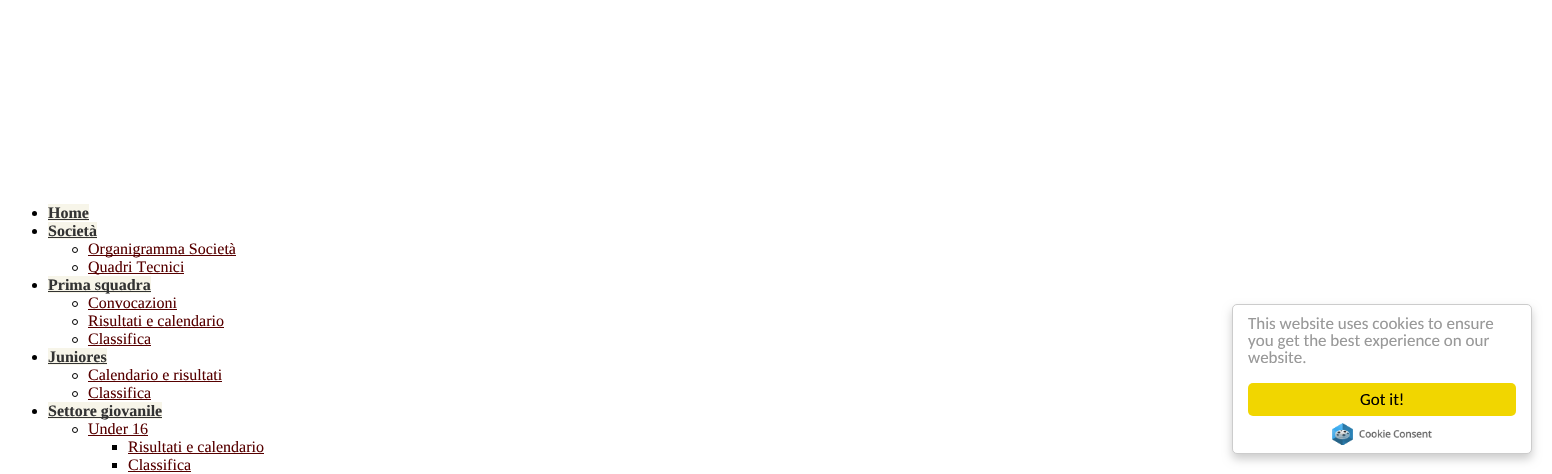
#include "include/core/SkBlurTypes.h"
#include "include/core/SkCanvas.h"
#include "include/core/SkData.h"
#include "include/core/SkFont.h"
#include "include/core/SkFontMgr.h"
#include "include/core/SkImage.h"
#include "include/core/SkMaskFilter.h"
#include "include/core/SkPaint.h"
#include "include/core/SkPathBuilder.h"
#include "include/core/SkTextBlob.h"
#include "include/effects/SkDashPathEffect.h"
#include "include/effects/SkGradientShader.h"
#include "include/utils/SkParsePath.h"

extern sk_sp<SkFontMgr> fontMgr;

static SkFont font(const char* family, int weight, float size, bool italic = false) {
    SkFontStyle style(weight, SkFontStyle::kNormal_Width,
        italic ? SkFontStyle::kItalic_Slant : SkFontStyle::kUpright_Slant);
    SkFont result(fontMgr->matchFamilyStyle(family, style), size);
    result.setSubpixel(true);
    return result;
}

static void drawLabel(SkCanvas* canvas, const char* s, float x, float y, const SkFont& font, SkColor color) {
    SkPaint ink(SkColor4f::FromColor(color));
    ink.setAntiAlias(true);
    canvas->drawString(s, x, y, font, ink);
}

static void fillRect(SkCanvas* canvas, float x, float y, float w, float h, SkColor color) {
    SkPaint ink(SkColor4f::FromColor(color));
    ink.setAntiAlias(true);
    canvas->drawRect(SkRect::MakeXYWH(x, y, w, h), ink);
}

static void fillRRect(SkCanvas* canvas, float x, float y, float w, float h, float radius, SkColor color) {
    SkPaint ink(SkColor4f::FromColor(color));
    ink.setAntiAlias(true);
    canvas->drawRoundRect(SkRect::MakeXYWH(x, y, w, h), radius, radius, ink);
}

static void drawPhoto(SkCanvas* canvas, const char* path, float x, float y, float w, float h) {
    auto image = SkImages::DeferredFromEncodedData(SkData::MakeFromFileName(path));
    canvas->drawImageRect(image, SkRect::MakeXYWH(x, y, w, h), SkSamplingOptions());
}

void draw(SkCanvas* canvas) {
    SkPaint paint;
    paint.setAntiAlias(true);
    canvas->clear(0xFFFFFFFF);
    paint.setColor(0xFF000000);
    canvas->drawCircle(34.5f, 213.5f, 2.5f, paint);
    fillRect(canvas, 48, 204, 41, 17, 0xFFF7F5E9);
    SkFont font1 = font("Liberation Serif", 700, 16);
    drawLabel(canvas, "Home", 48, 218, font1, 0xFF333333);
    fillRect(canvas, 48, 219, 41, 1, 0xFF333333);
    canvas->drawCircle(34.5f, 231.5f, 2.5f, paint);
    fillRect(canvas, 48, 222, 49, 17, 0xFFF7F5E9);
    drawLabel(canvas, "Società", 48, 236, font1, 0xFF333333);
    fillRect(canvas, 48, 237, 49, 1, 0xFF333333);
    paint.setStroke(true);
    paint.setStrokeWidth(1);
    canvas->drawCircle(75, 250, 2.5f, paint);
    fillRect(canvas, 88, 255, 148, 1, 0xFF570000);
    SkFont font2 = font("Liberation Serif", 400, 16);
    drawLabel(canvas, "Organigramma Società", 88, 254, font2, 0xFF570000);
    canvas->drawCircle(75, 268, 2.5f, paint);
    fillRect(canvas, 88, 273, 96, 1, 0xFF570000);
    drawLabel(canvas, "Quadri Tecnici", 88, 272, font2, 0xFF570000);
    paint.setStroke(false);
    canvas->drawCircle(34.5f, 285.5f, 2.5f, paint);
    fillRect(canvas, 48, 276, 103, 17, 0xFFF7F5E9);
    fillRect(canvas, 48, 291, 103, 1, 0xFF333333);
    drawLabel(canvas, "Prima squadra", 48, 290, font1, 0xFF333333);
    paint.setStroke(true);
    canvas->drawCircle(75, 304, 2.5f, paint);
    drawLabel(canvas, "Convocazioni", 88, 308, font2, 0xFF570000);
    fillRect(canvas, 88, 309, 89, 1, 0xFF570000);
    canvas->drawCircle(75, 322, 2.5f, paint);
    drawLabel(canvas, "Risultati e calendario", 88, 326, font2, 0xFF570000);
    fillRect(canvas, 88, 327, 136, 1, 0xFF570000);
    canvas->drawCircle(75, 340, 2.5f, paint);
    drawLabel(canvas, "Classifica", 88, 344, font2, 0xFF570000);
    fillRect(canvas, 88, 345, 63, 1, 0xFF570000);
    paint.setStroke(false);
    canvas->drawCircle(34.5f, 357.5f, 2.5f, paint);
    fillRect(canvas, 48, 348, 59, 17, 0xFFF7F5E9);
    drawLabel(canvas, "Juniores", 48, 362, font1, 0xFF333333);
    fillRect(canvas, 48, 363, 59, 1, 0xFF333333);
    paint.setStroke(true);
    canvas->drawCircle(75, 376, 2.5f, paint);
    drawLabel(canvas, "Calendario e risultati", 88, 380, font2, 0xFF570000);
    fillRect(canvas, 88, 381, 134, 1, 0xFF570000);
    canvas->drawCircle(75, 394, 2.5f, paint);
    drawLabel(canvas, "Classifica", 88, 398, font2, 0xFF570000);
    fillRect(canvas, 88, 399, 63, 1, 0xFF570000);
    paint.setStroke(false);
    canvas->drawCircle(34.5f, 411.5f, 2.5f, paint);
    fillRect(canvas, 48, 402, 114, 17, 0xFFF7F5E9);
    fillRect(canvas, 48, 417, 114, 1, 0xFF333333);
    drawLabel(canvas, "Settore giovanile", 48, 416, font1, 0xFF333333);
    paint.setStroke(true);
    canvas->drawCircle(75, 430, 2.5f, paint);
    drawLabel(canvas, "Under 16", 88, 434, font2, 0xFF570000);
    fillRect(canvas, 88, 435, 60, 1, 0xFF570000);
    fillRect(canvas, 112, 445, 5, 5, 0xFF000000);
    drawLabel(canvas, "Risultati e calendario", 128, 452, font2, 0xFF570000);
    fillRect(canvas, 128, 453, 136, 1, 0xFF570000);
    fillRect(canvas, 112, 463, 5, 5, 0xFF000000);
    drawLabel(canvas, "Classifica", 128, 470, font2, 0xFF570000);
    fillRect(canvas, 128, 471, 63, 1, 0xFF570000);
    paint.setStroke(false);
    paint.setColor(0x33000000);
    paint.setMaskFilter(SkMaskFilter::MakeBlur(kNormal_SkBlurStyle, 5));
    canvas->drawRoundRect(SkRect::MakeXYWH(1232, 309, 300, 150), 5, 5, paint);
    paint.setMaskFilter(nullptr);
    paint.setColor(0xFFFFFFFF);
    canvas->drawRoundRect(SkRect::MakeXYWH(1232.5f, 304.5f, 299, 149), 4.5f, 4.5f, paint);
    paint.setStroke(true);
    paint.setColor(0xFFCCCCCC);
    canvas->drawRoundRect(SkRect::MakeXYWH(1232.5f, 304.5f, 299, 149), 4.5f, 4.5f, paint);
    SkFont font3 = font("Carlito", 400, 17);
    drawLabel(canvas, "This website uses cookies to ensure", 1248, 329, font3, 0xFF999999);
    drawLabel(canvas, "you get the best experience on our", 1248, 346, font3, 0xFF999999);
    drawLabel(canvas, "website.", 1248, 363, font3, 0xFF999999);
    fillRRect(canvas, 1248, 383, 268, 33, 5, 0xFFF1D600);
    drawLabel(canvas, "Got it!", 1360, 405, font3, 0xFF000000);
    drawPhoto(canvas, "assets/img1.png", 1332, 423, 100, 22);
}
